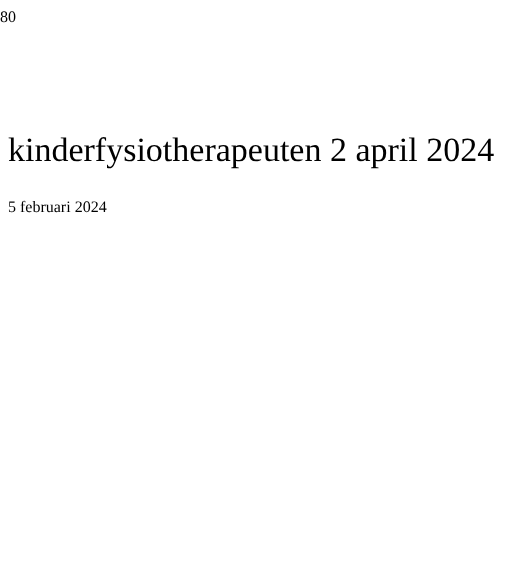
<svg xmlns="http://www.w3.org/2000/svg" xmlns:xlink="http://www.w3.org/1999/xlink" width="526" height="568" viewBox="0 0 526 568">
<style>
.cls-1{font:16px Liberation Serif;fill:#000000}
.cls-2{font:34px Liberation Serif;fill:#000000}
</style>
<rect width="100%" height="100%" fill="#ffffff"/>
<text class="cls-1" x="0" y="22">80</text>
<text class="cls-2" x="8" y="161">kinderfysiotherapeuten 2 april 2024</text>
<text class="cls-1" x="8" y="212">5 februari 2024</text>
</svg>
